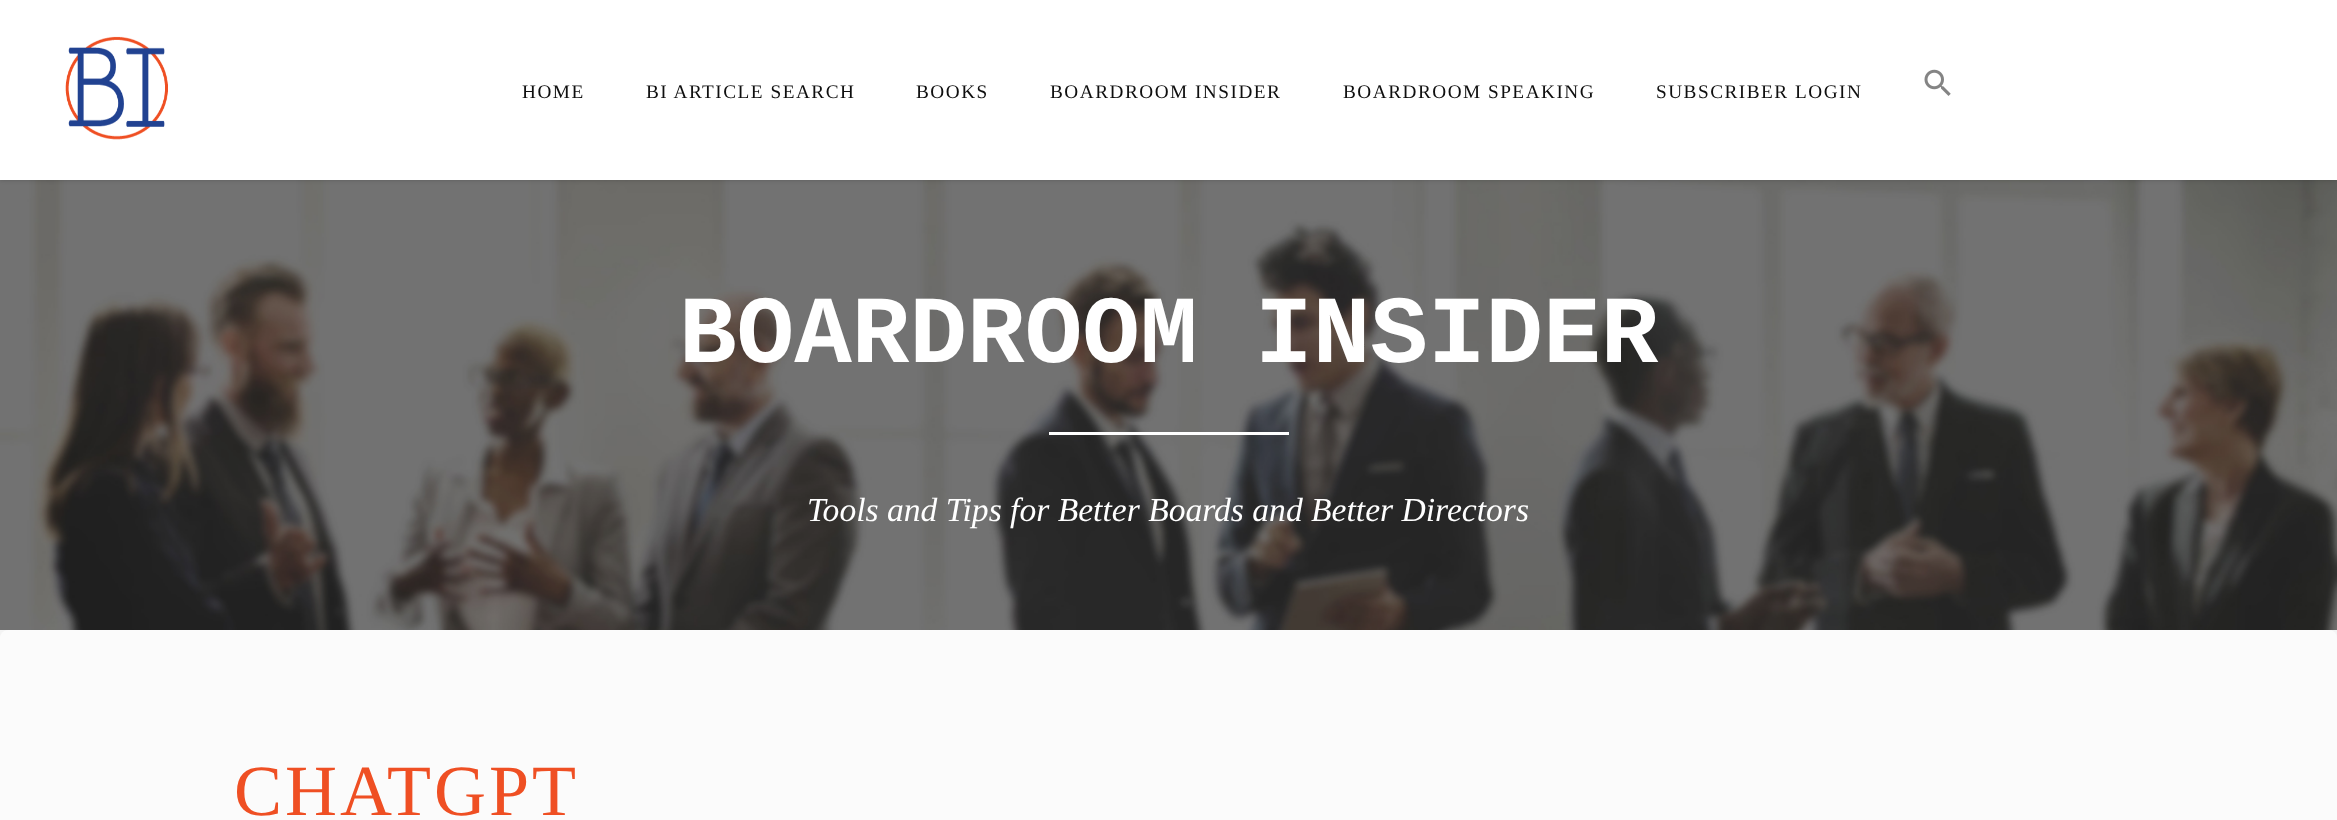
<svg xmlns="http://www.w3.org/2000/svg" xmlns:xlink="http://www.w3.org/1999/xlink" width="2337" height="820" viewBox="0 0 2337 820">
<style>
.cls-1{font:19.25px Liberation Serif;letter-spacing:1.5px;fill:#0f0f0f}
.cls-2{font:bold 96px Liberation Mono;fill:#ffffff}
.cls-3{font:italic 33.6px Liberation Serif;fill:#ffffff}
.cls-4{font:72px Liberation Serif;letter-spacing:3px;fill:#ef4f23}
</style>
<rect width="100%" height="100%" fill="#f3f3f3"/>
<image xlink:href="image2.png" x="0" y="180" width="2337" height="450"/>
<rect fill="#000000" fill-opacity="0.2" filter="blur(2px)" x="0" y="0" width="2337" height="180"/>
<rect fill="#ffffff" x="0" y="0" width="2337" height="180"/>
<image xlink:href="image0.png" x="65" y="36" width="103" height="104"/>
<image xlink:href="image1.png" x="1924" y="69" width="27" height="27"/>
<rect fill="#ffffff" x="1049" y="432" width="240" height="3"/>
<rect fill="#fbfbfb" x="0" y="630" width="2337" height="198" rx="8"/>
<text class="cls-1" x="522" y="98">HOME</text>
<text class="cls-1" x="646" y="98">BI ARTICLE SEARCH</text>
<text class="cls-1" x="916" y="98">BOOKS</text>
<text class="cls-1" x="1050" y="98">BOARDROOM INSIDER</text>
<text class="cls-1" x="1343" y="98">BOARDROOM SPEAKING</text>
<text class="cls-1" x="1656" y="98">SUBSCRIBER LOGIN</text>
<text class="cls-2" x="679" y="362">BOARDROOM INSIDER</text>
<text class="cls-3" x="807" y="521">Tools and Tips for Better Boards and Better Directors</text>
<text class="cls-4" x="234" y="815">CHATGPT</text>
</svg>
